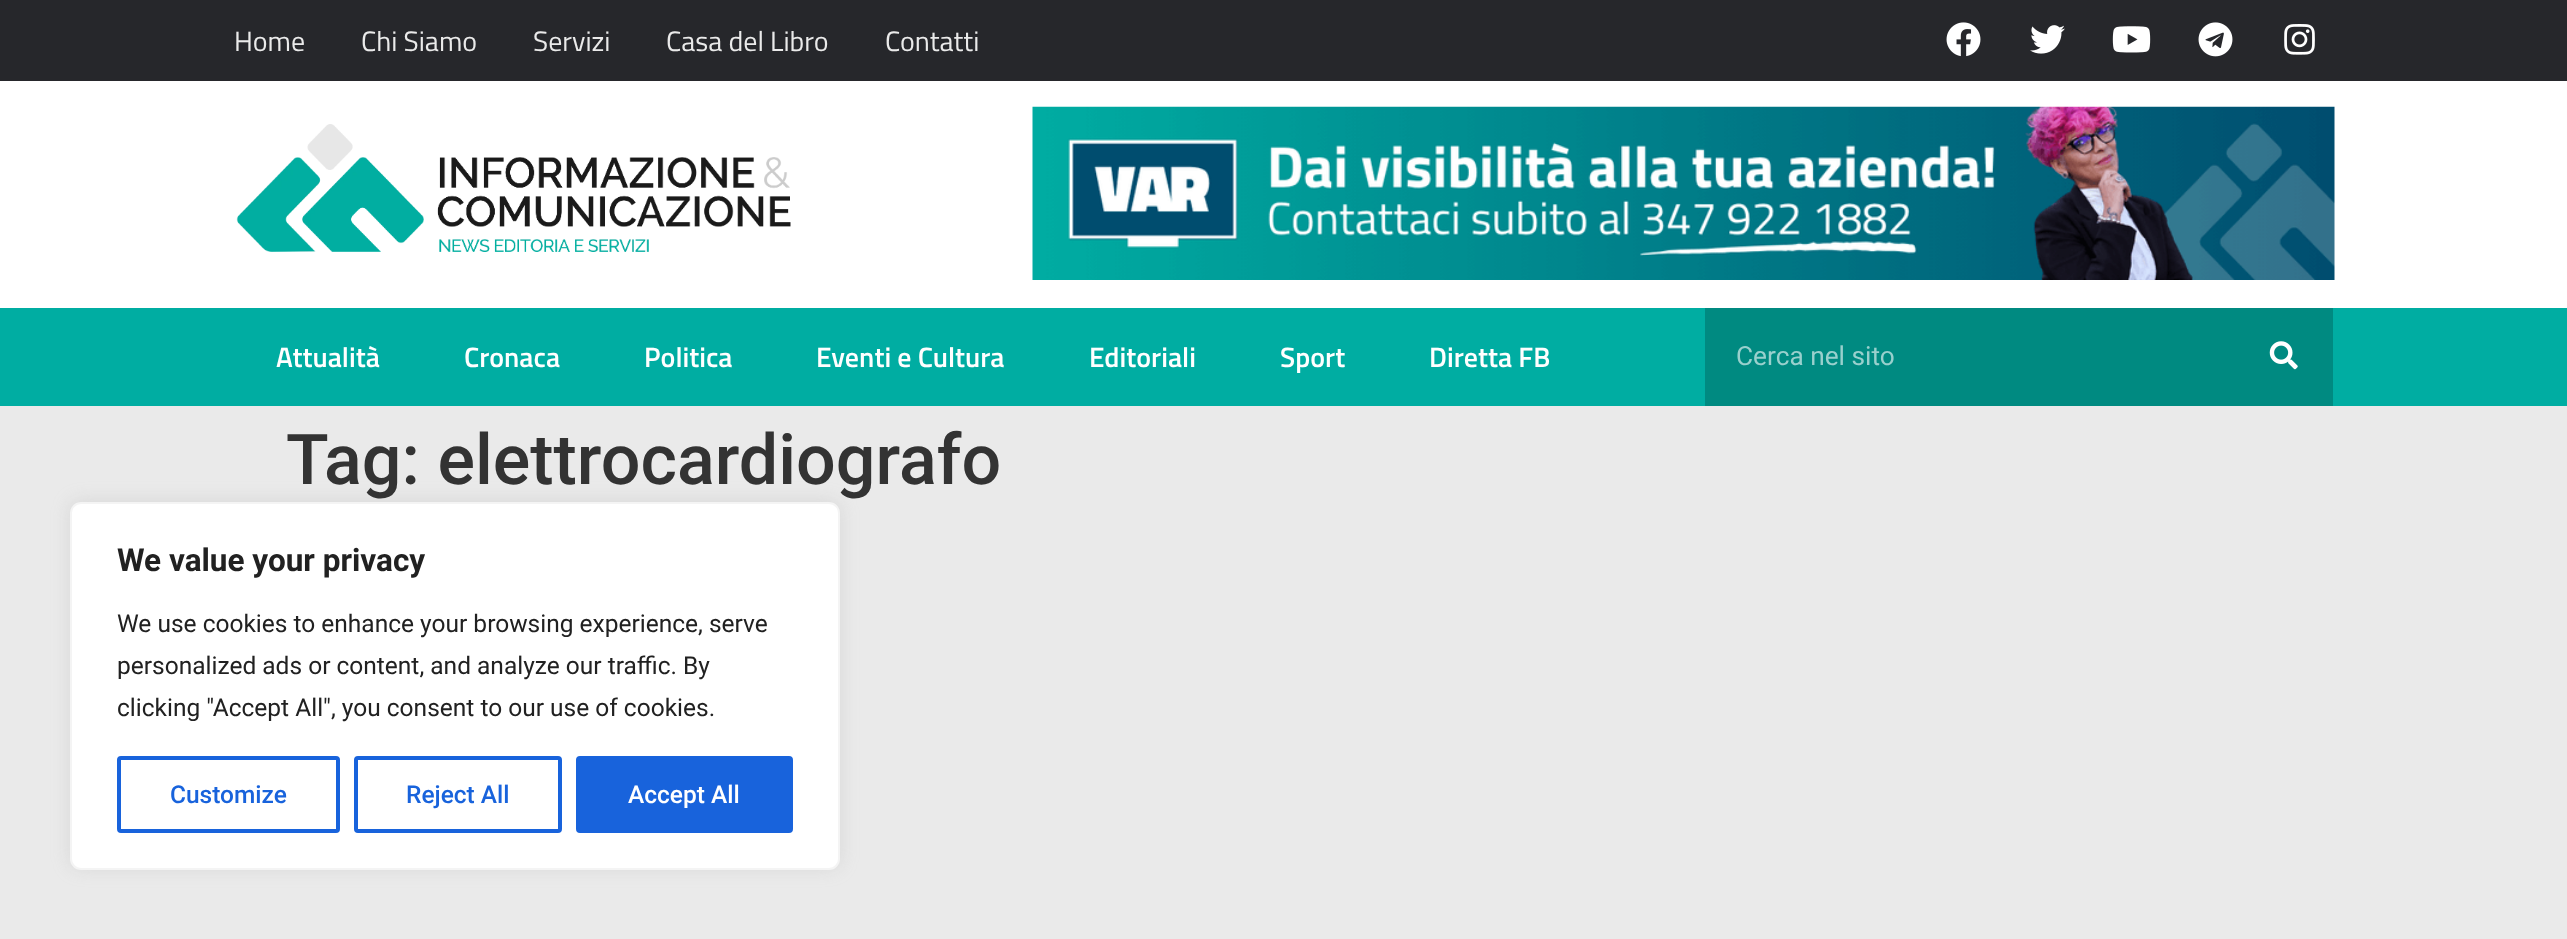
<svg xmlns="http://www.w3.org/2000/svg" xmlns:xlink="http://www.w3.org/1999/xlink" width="2567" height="939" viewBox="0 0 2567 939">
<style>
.cls-1{font:28px Titillium Web;fill:#eaeaea}
.cls-2{font:600 28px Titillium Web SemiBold;fill:#ffffff}
.cls-3{font:26.25px Roboto;fill:#99d0cd}
.cls-4{font:500 70px Roboto;fill:#333333}
.cls-5{font:bold 31.5px Roboto;fill:#212121}
.cls-6{font:24.5px Roboto;fill:#212121}
.cls-7{font:500 24.5px Roboto;fill:#1863dc}
.cls-8{font:500 24.5px Roboto;fill:#ffffff}
</style>
<rect width="100%" height="100%" fill="#eaeaea"/>
<rect fill="#26272b" x="0" y="0" width="2567" height="81"/>
<image xlink:href="image0.png" x="1946" y="22" width="35" height="35"/>
<image xlink:href="image1.png" x="2030" y="25" width="35" height="29"/>
<image xlink:href="image2.png" x="2112" y="26" width="39" height="27"/>
<image xlink:href="image3.png" x="2198" y="22" width="35" height="35"/>
<image xlink:href="image4.png" x="2284" y="24" width="31" height="31"/>
<rect fill="#ffffff" x="0" y="81" width="2567" height="227"/>
<image xlink:href="image5.png" x="236" y="124" width="555" height="128"/>
<image xlink:href="image6.png" x="1032" y="106" width="1303" height="174"/>
<rect fill="#00ada2" x="0" y="308" width="2567" height="98"/>
<rect fill="#008a81" x="1705" y="308" width="628" height="98"/>
<image xlink:href="image7.png" x="2269" y="341" width="29" height="29"/>
<rect fill="#acabab" fill-opacity="0.3" filter="blur(9px)" x="70" y="501" width="770" height="367" rx="11"/>
<rect fill="#ffffff" stroke="#f4f4f4" stroke-width="2" x="71" y="503" width="768" height="366" rx="10"/>
<rect fill="none" stroke="#1863dc" stroke-width="4" x="119" y="758" width="219" height="73" rx="2"/>
<rect fill="none" stroke="#1863dc" stroke-width="4" x="356" y="758" width="204" height="73" rx="2"/>
<rect fill="#1863dc" stroke="#1863dc" stroke-width="4" x="578" y="758" width="213" height="73" rx="2"/>
<text class="cls-1" x="234" y="51">Home</text>
<text class="cls-1" x="361" y="51">Chi Siamo</text>
<text class="cls-1" x="533" y="51">Servizi</text>
<text class="cls-1" x="666" y="51">Casa del Libro</text>
<text class="cls-1" x="885" y="51">Contatti</text>
<text class="cls-2" x="276" y="367">Attualità</text>
<text class="cls-2" x="464" y="367">Cronaca</text>
<text class="cls-2" x="644" y="367">Politica</text>
<text class="cls-2" x="816" y="367">Eventi e Cultura</text>
<text class="cls-2" x="1089" y="367">Editoriali</text>
<text class="cls-2" x="1280" y="367">Sport</text>
<text class="cls-2" x="1429" y="367">Diretta FB</text>
<text class="cls-3" x="1736" y="365">Cerca nel sito</text>
<text class="cls-4" x="286" y="484">Tag: elettrocardiografo</text>
<text class="cls-5" x="117" y="571">We value your privacy</text>
<text class="cls-6"><tspan x="117" y="632">We use cookies to enhance your browsing experience, serve</tspan><tspan x="117" y="674">personalized ads or content, and analyze our traffic. By</tspan><tspan x="117" y="716">clicking "Accept All", you consent to our use of cookies.</tspan></text>
<text class="cls-7" x="170" y="803">Customize</text>
<text class="cls-7" x="406" y="803">Reject All</text>
<text class="cls-8" x="628" y="803">Accept All</text>
</svg>
